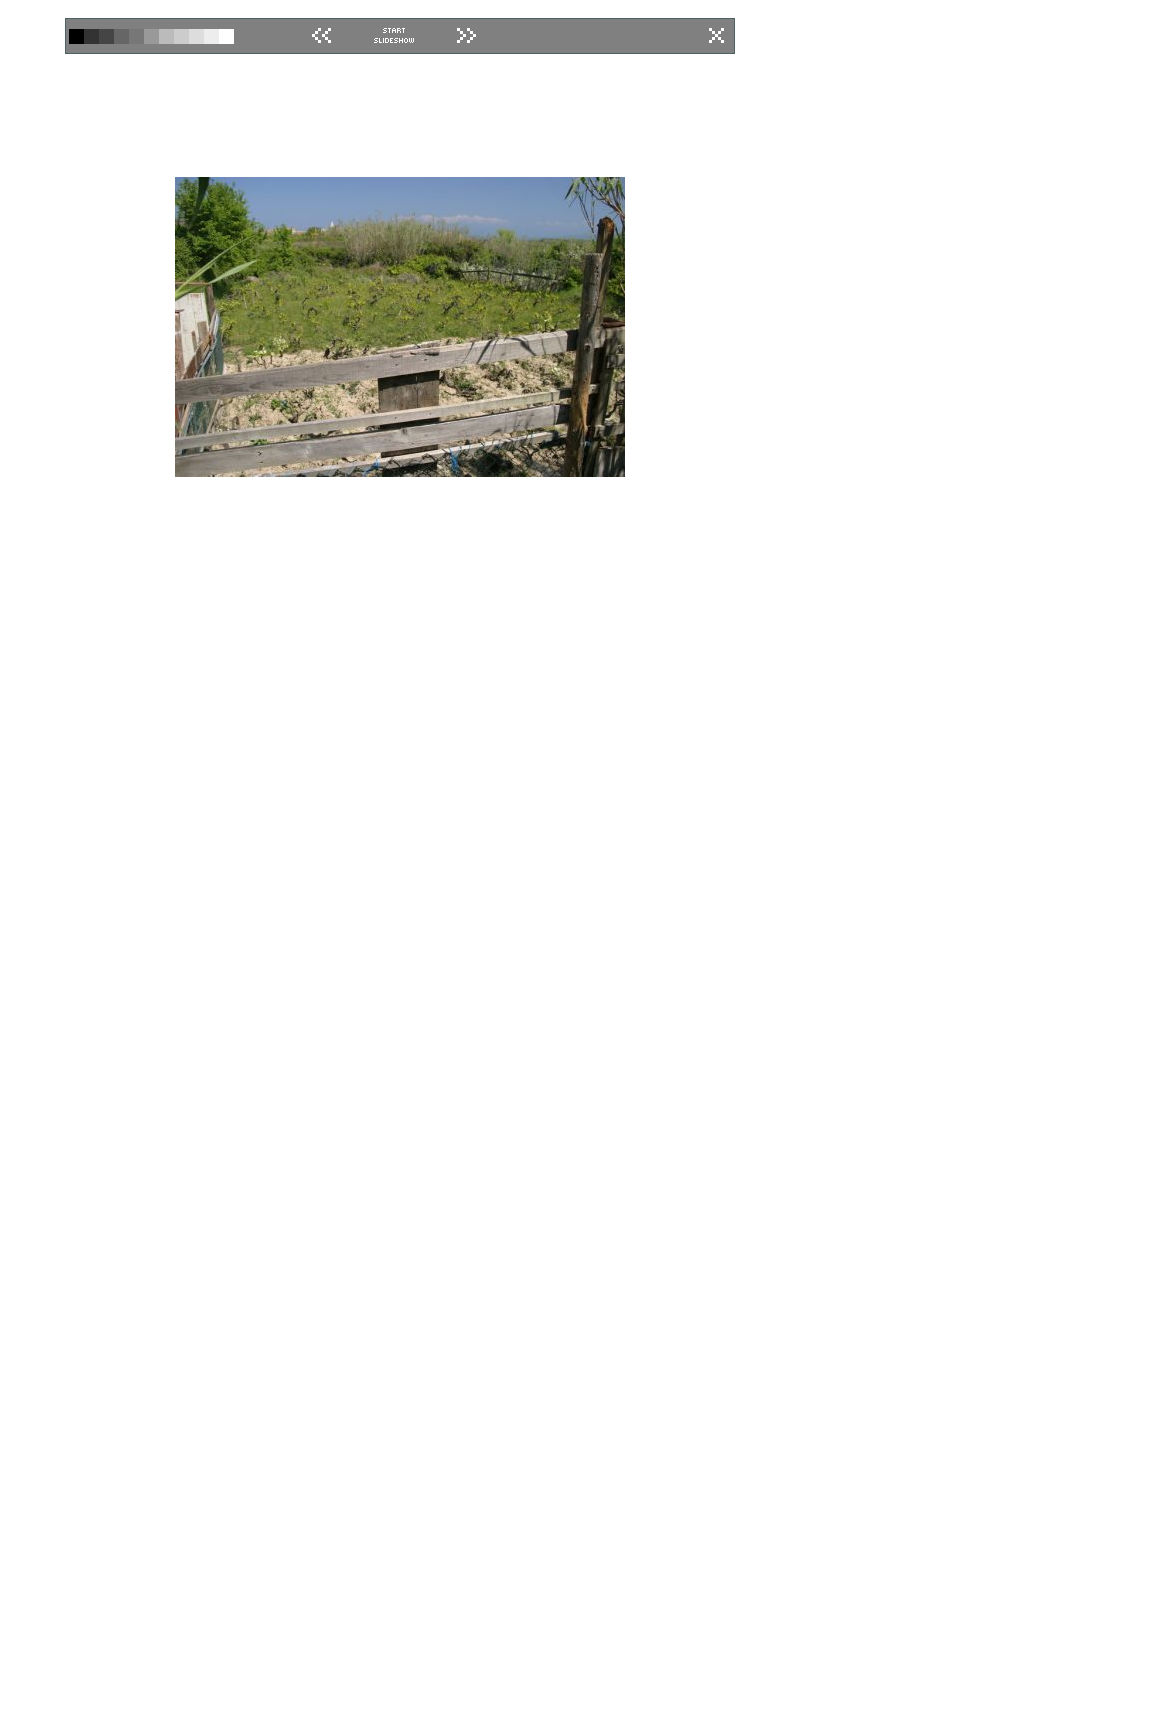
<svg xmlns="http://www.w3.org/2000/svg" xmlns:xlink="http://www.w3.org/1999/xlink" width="1169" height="1727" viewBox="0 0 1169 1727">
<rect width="100%" height="100%" fill="#ffffff"/>
<rect fill="#808080" stroke="#4c6164" x="65.5" y="18.5" width="669" height="35"/>
<rect fill="#000000" x="69" y="29" width="15" height="15"/>
<rect fill="#333333" x="84" y="29" width="15" height="15"/>
<rect fill="#454545" x="99" y="29" width="15" height="15"/>
<rect fill="#666666" x="114" y="29" width="15" height="15"/>
<rect fill="#777777" x="129" y="29" width="15" height="15"/>
<rect fill="#999999" x="144" y="29" width="15" height="15"/>
<rect fill="#bbbbbb" x="159" y="29" width="15" height="15"/>
<rect fill="#cccccc" x="174" y="29" width="15" height="15"/>
<rect fill="#dddddd" x="189" y="29" width="15" height="15"/>
<rect fill="#ededed" x="204" y="29" width="15" height="15"/>
<rect fill="#ffffff" x="219" y="29" width="15" height="15"/>
<image xlink:href="image0.png" x="312" y="28" width="19" height="15"/>
<image xlink:href="image1.png" x="374" y="28" width="40" height="15"/>
<image xlink:href="image2.png" x="457" y="28" width="19" height="15"/>
<image xlink:href="image3.png" x="709" y="28" width="15" height="15"/>
<image xlink:href="image4.png" x="175" y="177" width="450" height="300"/>
</svg>
